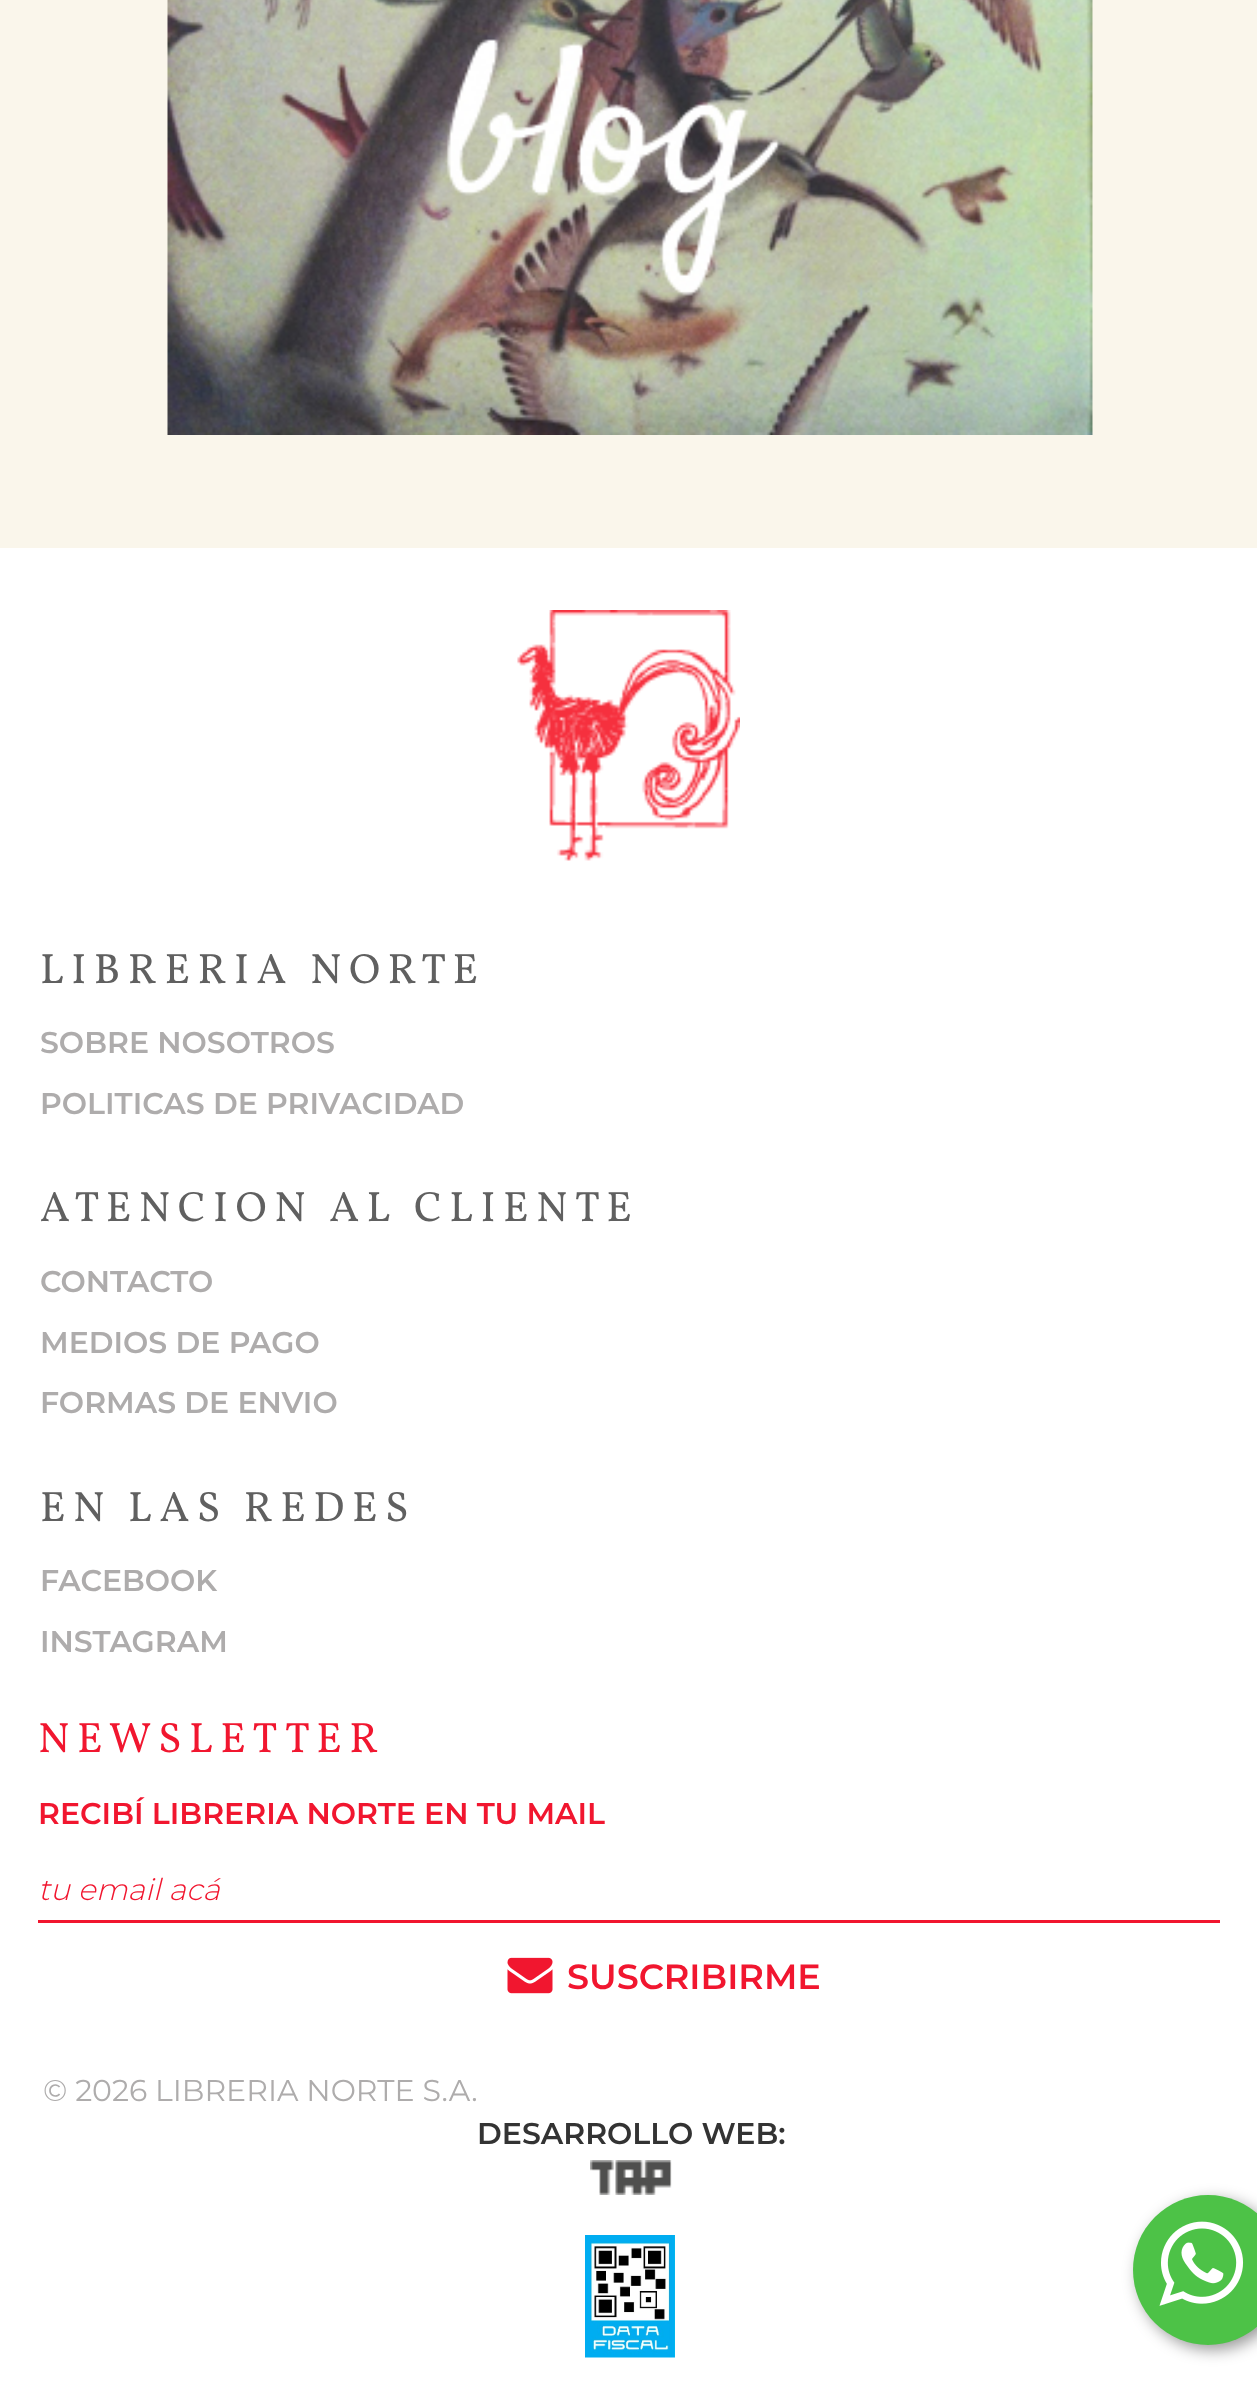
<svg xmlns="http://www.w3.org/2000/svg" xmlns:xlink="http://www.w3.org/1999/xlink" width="1257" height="2395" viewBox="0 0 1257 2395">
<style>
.cls-1{font:42.5px Vollkorn;letter-spacing:7.5px;fill:#606060}
.cls-2{font:600 30px Montserrat;fill:#aeacac}
.cls-3{font:42.5px Vollkorn;letter-spacing:7.5px;fill:#f1162f}
.cls-4{font:600 30px Montserrat;fill:#f1162f}
.cls-5{font:italic 300 30px Montserrat;fill:#f1162f}
.cls-6{font:600 35px Montserrat;fill:#f1162f}
.cls-7{font:30px Montserrat;fill:#aeacac}
.cls-8{font:600 30px Montserrat;fill:#333333}
</style>
<rect width="100%" height="100%" fill="#faf6eb"/>
<image xlink:href="image0.png" x="167" y="0" width="926" height="435"/>
<rect fill="#ffffff" x="0" y="548" width="1257" height="1847"/>
<image xlink:href="image1.png" x="517" y="610" width="223" height="251"/>
<rect fill="#f1162f" x="38" y="1920" width="1182" height="3"/>
<image xlink:href="image2.png" x="507" y="1957" width="46" height="37"/>
<image xlink:href="image3.png" x="590" y="2160" width="82" height="35"/>
<rect fill="#000000" fill-opacity="0.4" filter="blur(7.5px)" x="1138" y="2200" width="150" height="150" rx="75"/>
<circle fill="#4dc247" cx="1208" cy="2270" r="75"/>
<image xlink:href="image4.png" x="1159" y="2221" width="85" height="85"/>
<image xlink:href="image5.png" x="585" y="2235" width="90" height="123"/>
<text class="cls-1" x="40" y="983">LIBRERIA NORTE</text>
<text class="cls-2" x="40" y="1053">SOBRE NOSOTROS</text>
<text class="cls-2" x="40" y="1114">POLITICAS DE PRIVACIDAD</text>
<text class="cls-1" x="40" y="1221">ATENCION AL CLIENTE</text>
<text class="cls-2" x="40" y="1292">CONTACTO</text>
<text class="cls-2" x="40" y="1353">MEDIOS DE PAGO</text>
<text class="cls-2" x="40" y="1413">FORMAS DE ENVIO</text>
<text class="cls-1" x="40" y="1521">EN LAS REDES</text>
<text class="cls-2" x="40" y="1591">FACEBOOK</text>
<text class="cls-2" x="40" y="1652">INSTAGRAM</text>
<text class="cls-3" x="38" y="1752">NEWSLETTER</text>
<text class="cls-4" x="38" y="1824">RECIBÍ LIBRERIA NORTE EN TU MAIL</text>
<text class="cls-5" x="38" y="1900">tu email acá</text>
<text class="cls-6" x="567" y="1989">SUSCRIBIRME</text>
<text class="cls-7" x="43" y="2101">© 2026 LIBRERIA NORTE S.A.</text>
<text class="cls-8" x="477" y="2144">DESARROLLO WEB:</text>
</svg>
